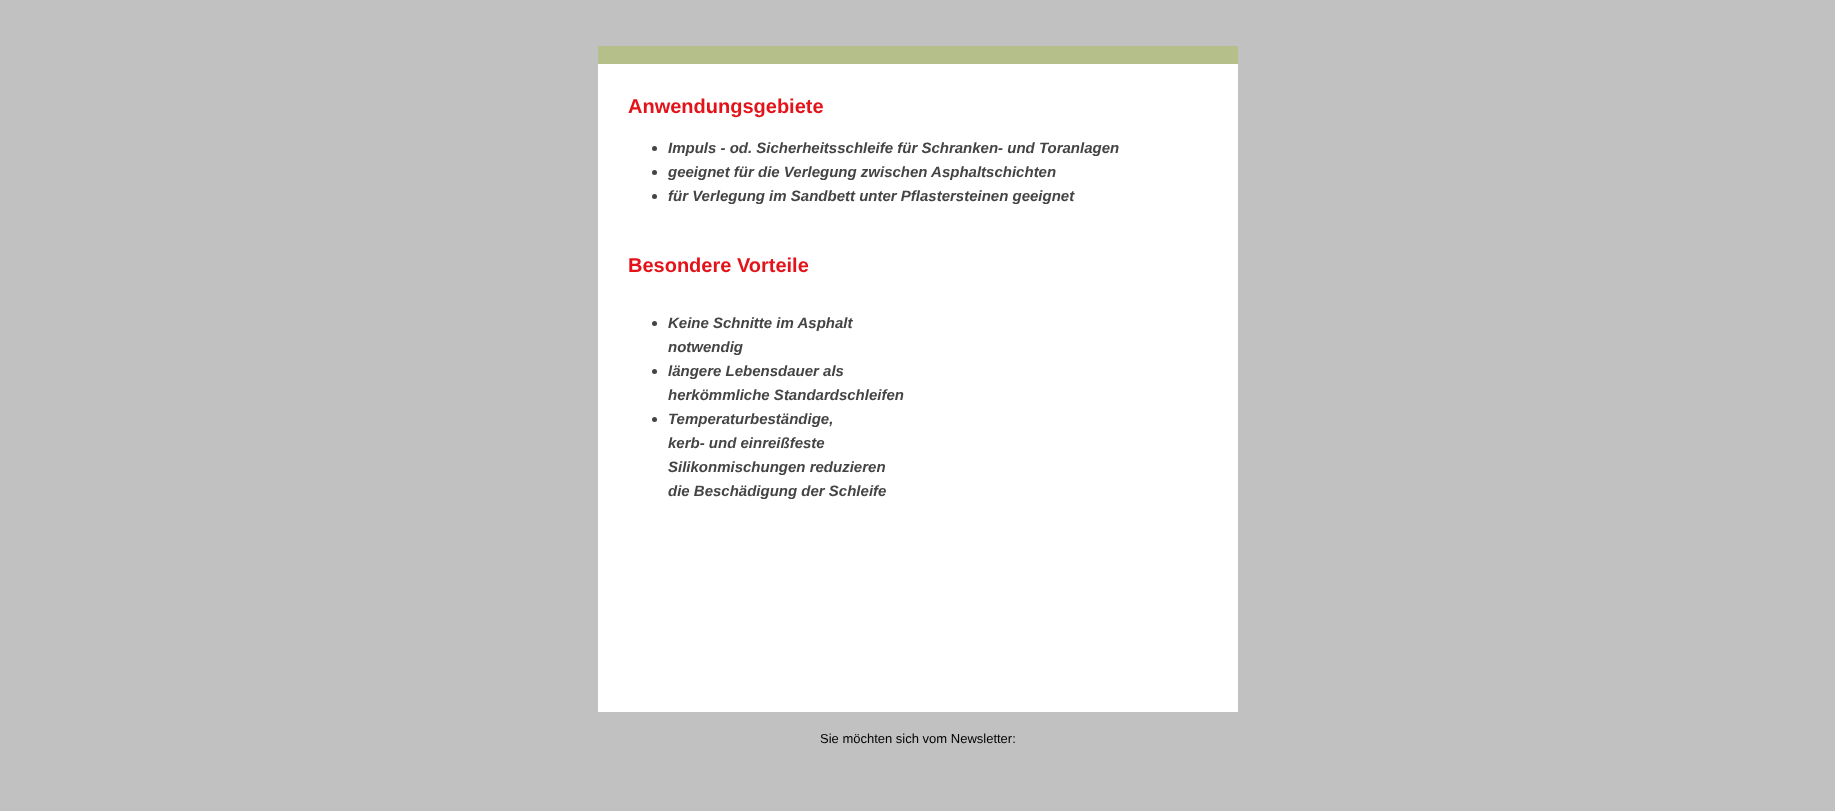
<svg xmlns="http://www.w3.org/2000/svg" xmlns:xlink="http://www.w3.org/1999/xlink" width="1835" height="811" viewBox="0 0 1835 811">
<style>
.cls-1{font:bold 20px Liberation Sans;fill:#e31319}
.cls-2{font:italic bold 15px Liberation Sans;fill:#444444}
.cls-3{font:13px Liberation Sans;fill:#000000}
</style>
<rect width="100%" height="100%" fill="#c1c1c1"/>
<rect fill="#b4bf8a" x="598" y="46" width="640" height="18"/>
<rect fill="#ffffff" x="598" y="64" width="640" height="648"/>
<circle fill="#444444" cx="654.5" cy="148.5" r="2.5"/>
<circle fill="#444444" cx="654.5" cy="172.5" r="2.5"/>
<circle fill="#444444" cx="654.5" cy="196.5" r="2.5"/>
<circle fill="#444444" cx="654.5" cy="323.5" r="2.5"/>
<circle fill="#444444" cx="654.5" cy="371.5" r="2.5"/>
<circle fill="#444444" cx="654.5" cy="419.5" r="2.5"/>
<text class="cls-1" x="628" y="113">Anwendungsgebiete</text>
<text class="cls-2"><tspan x="668" y="153">Impuls - od. Sicherheitsschleife für Schranken- und Toranlagen</tspan><tspan x="668" y="177">geeignet für die Verlegung zwischen Asphaltschichten</tspan><tspan x="668" y="201">für Verlegung im Sandbett unter Pflastersteinen geeignet</tspan></text>
<text class="cls-1" x="628" y="272">Besondere Vorteile</text>
<text class="cls-2"><tspan x="668" y="328">Keine Schnitte im Asphalt</tspan><tspan x="668" y="352">notwendig</tspan><tspan x="668" y="376">längere Lebensdauer als</tspan><tspan x="668" y="400">herkömmliche Standardschleifen</tspan><tspan x="668" y="424">Temperaturbeständige,</tspan><tspan x="668" y="448">kerb- und einreißfeste</tspan><tspan x="668" y="472">Silikonmischungen reduzieren</tspan><tspan x="668" y="496">die Beschädigung der Schleife</tspan></text>
<text class="cls-3" x="820" y="743">Sie möchten sich vom Newsletter:</text>
</svg>
